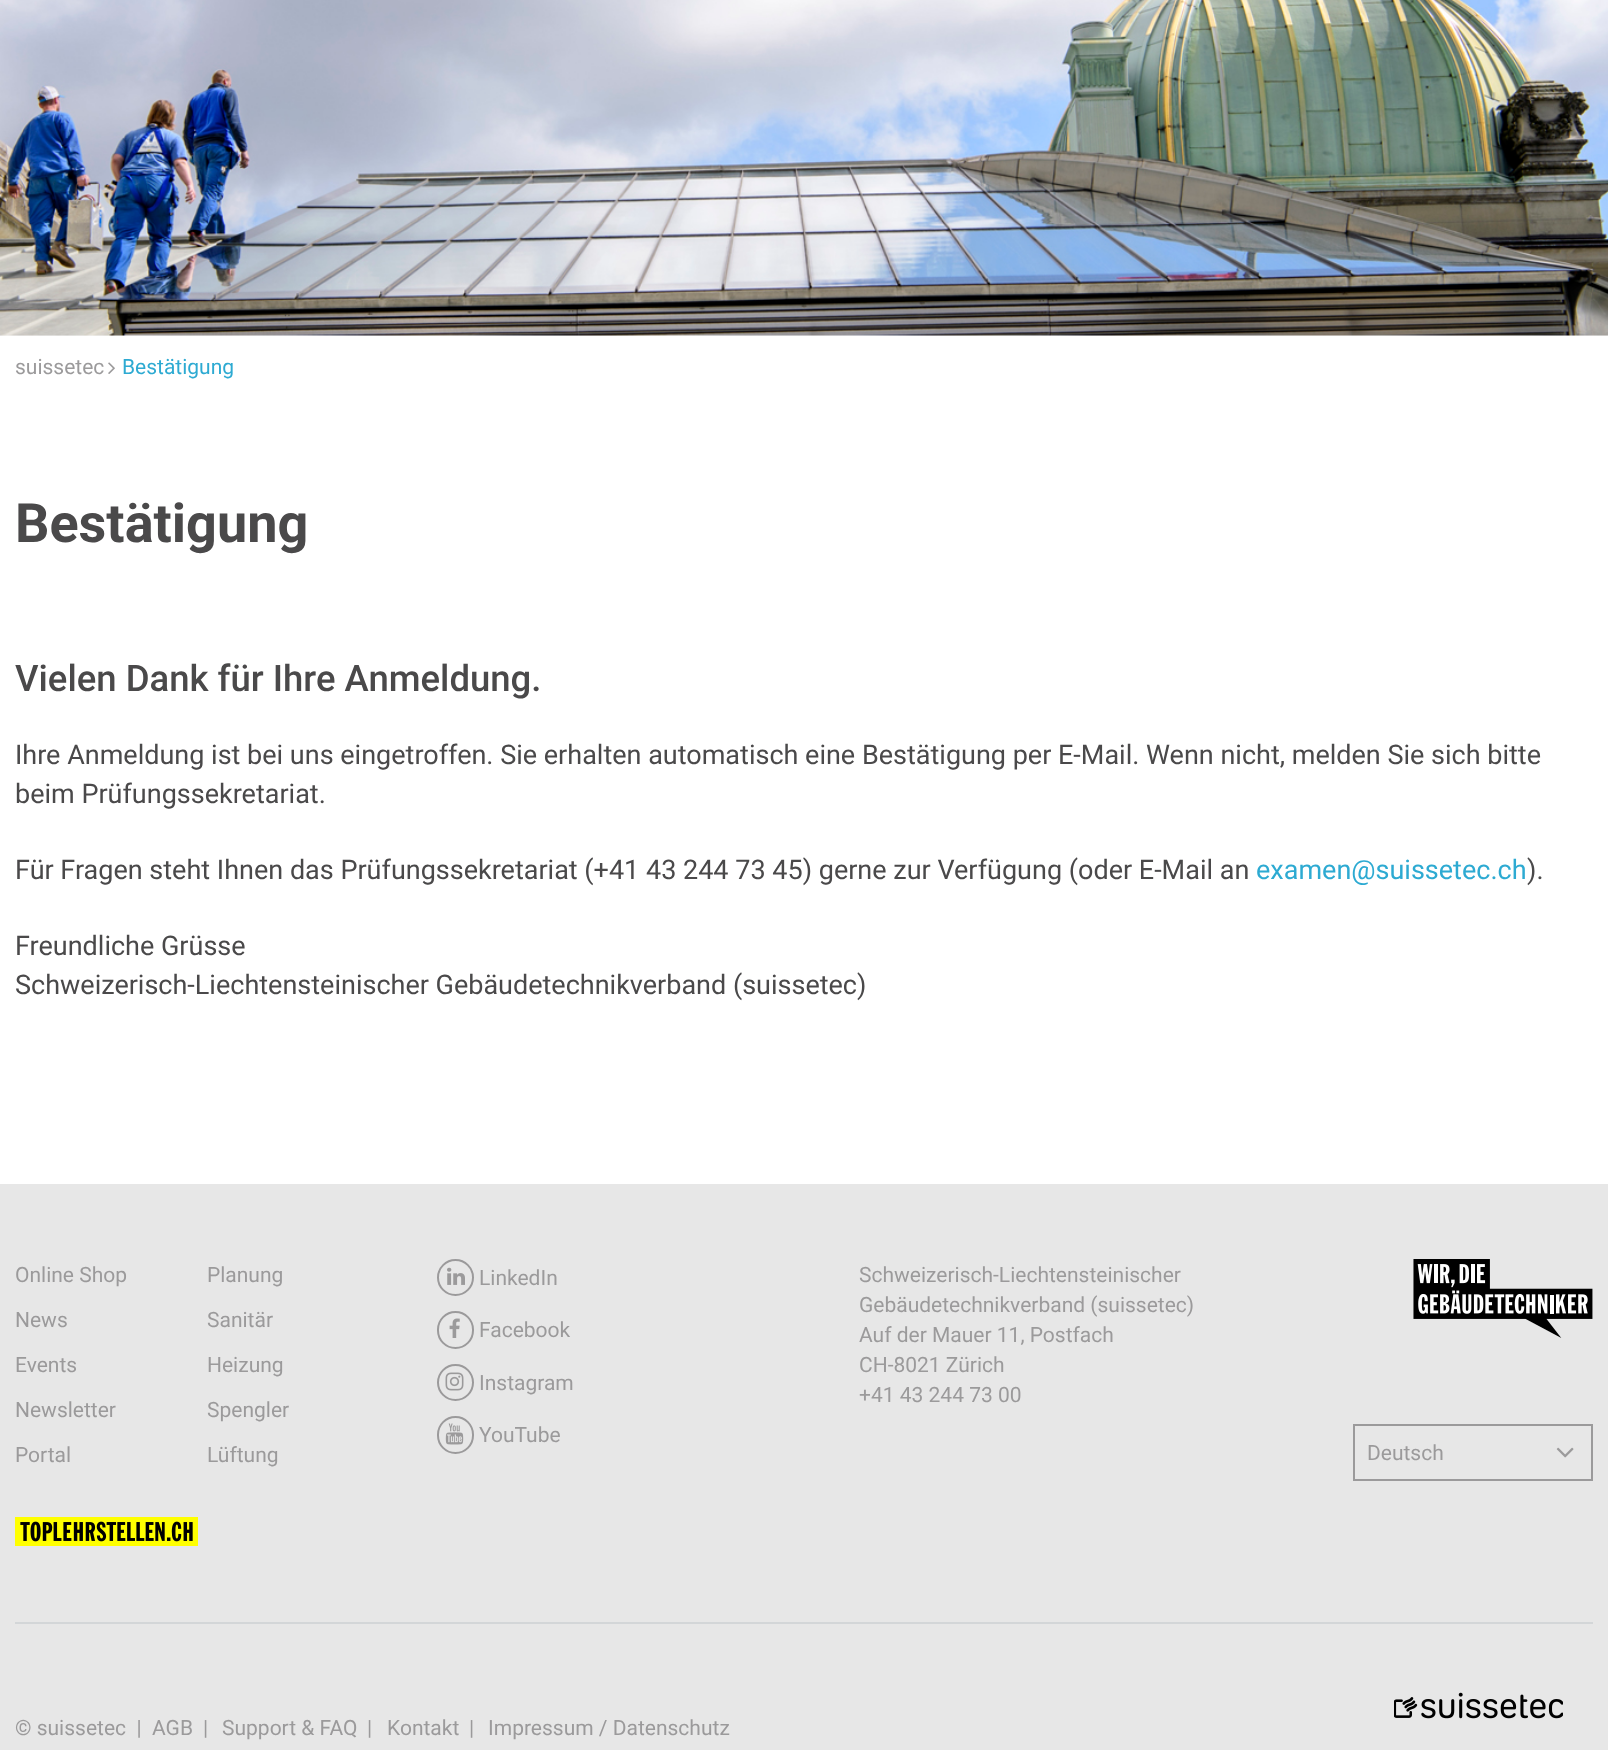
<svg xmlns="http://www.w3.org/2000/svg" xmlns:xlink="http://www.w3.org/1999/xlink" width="1608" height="1750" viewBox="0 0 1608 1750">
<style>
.cls-1{font:21px Roboto;fill:#9b9a9b}
.cls-2{font:21px Roboto;fill:#2daad2}
.cls-3{font:bold 54px Roboto;fill:#4a494a}
.cls-4{font:500 36.5px Roboto;fill:#4a494a}
.cls-5{font:27px Roboto;fill:#4a494a}
.cls-6{font:27px Roboto;fill:#2daad2}
</style>
<rect width="100%" height="100%" fill="#ffffff"/>
<rect fill="#f5f5f5" x="0" y="335" width="1608" height="1"/>
<image xlink:href="image0.png" x="0" y="0" width="1608" height="336"/>
<image xlink:href="image1.png" x="108" y="362" width="7" height="12"/>
<rect fill="#e7e7e7" x="0" y="1184" width="1608" height="566"/>
<circle fill="none" stroke="#9b9a9b" stroke-width="2" cx="455.5" cy="1277.5" r="17.5"/>
<image xlink:href="image2.png" x="447" y="1267" width="18" height="18"/>
<rect fill="none" stroke="#9b9a9b" stroke-width="2" x="438" y="1312" width="35" height="36" rx="17.5"/>
<image xlink:href="image3.png" x="449" y="1318" width="11" height="20"/>
<circle fill="none" stroke="#9b9a9b" stroke-width="2" cx="455.5" cy="1382.5" r="17.5"/>
<image xlink:href="image4.png" x="445" y="1372" width="19" height="19"/>
<rect fill="none" stroke="#9b9a9b" stroke-width="2" x="438" y="1417" width="35" height="36" rx="17.5"/>
<image xlink:href="image5.png" x="445" y="1423" width="19" height="22"/>
<image xlink:href="image6.png" x="1413" y="1259" width="180" height="79"/>
<rect fill="none" stroke="#9b9a9b" stroke-width="2" x="1354" y="1425" width="238" height="55"/>
<image xlink:href="image7.png" x="1556" y="1447" width="18" height="11"/>
<image xlink:href="image8.png" x="15" y="1517" width="183" height="29"/>
<rect fill="#d3d6d8" x="15" y="1622" width="1578" height="2"/>
<image xlink:href="image9.png" x="1394" y="1692" width="169" height="27"/>
<text class="cls-1" x="15" y="374">suissetec</text>
<text class="cls-2" x="122" y="374">Bestätigung</text>
<text class="cls-3" x="15" y="542">Bestätigung</text>
<text class="cls-4" x="15" y="691">Vielen Dank für Ihre Anmeldung.</text>
<text class="cls-5"><tspan x="15" y="764">Ihre Anmeldung ist bei uns eingetroffen. Sie erhalten automatisch eine Bestätigung per E-Mail. Wenn nicht, melden Sie sich bitte</tspan><tspan x="15" y="803">beim Prüfungssekretariat.</tspan></text>
<text class="cls-5" x="15" y="879">Für Fragen steht Ihnen das Prüfungssekretariat (+41 43 244 73 45) gerne zur Verfügung (oder E-Mail an</text>
<text class="cls-6" x="1256" y="879">examen@suissetec.ch</text>
<text class="cls-5" x="1527" y="879">).</text>
<text class="cls-5"><tspan x="15" y="955">Freundliche Grüsse</tspan><tspan x="15" y="994">Schweizerisch-Liechtensteinischer Gebäudetechnikverband (suissetec)</tspan></text>
<text class="cls-1" x="15" y="1282">Online Shop</text>
<text class="cls-1" x="207" y="1282">Planung</text>
<text class="cls-1" x="15" y="1327">News</text>
<text class="cls-1" x="207" y="1327">Sanitär</text>
<text class="cls-1" x="15" y="1372">Events</text>
<text class="cls-1" x="207" y="1372">Heizung</text>
<text class="cls-1" x="15" y="1417">Newsletter</text>
<text class="cls-1" x="207" y="1417">Spengler</text>
<text class="cls-1" x="15" y="1462">Portal</text>
<text class="cls-1" x="207" y="1462">Lüftung</text>
<text class="cls-1" x="479" y="1285">LinkedIn</text>
<text class="cls-1" x="479" y="1337">Facebook</text>
<text class="cls-1" x="479" y="1390">Instagram</text>
<text class="cls-1" x="479" y="1442">YouTube</text>
<text class="cls-1"><tspan x="859" y="1282">Schweizerisch-Liechtensteinischer</tspan><tspan x="859" y="1312">Gebäudetechnikverband (suissetec)</tspan><tspan x="859" y="1342">Auf der Mauer 11, Postfach</tspan><tspan x="859" y="1372">CH-8021 Zürich</tspan><tspan x="859" y="1402">+41 43 244 73 00</tspan></text>
<text class="cls-1" x="1367" y="1460">Deutsch</text>
<text class="cls-1" xml:space="preserve" x="15" y="1735">© suissetec  |</text>
<text class="cls-1" x="152" y="1735">AGB</text>
<text class="cls-1" x="203" y="1735">|</text>
<text class="cls-1" x="222" y="1735">Support &amp; FAQ</text>
<text class="cls-1" x="367" y="1735">|</text>
<text class="cls-1" x="387" y="1735">Kontakt</text>
<text class="cls-1" x="469" y="1735">|</text>
<text class="cls-1" x="488" y="1735">Impressum / Datenschutz</text>
</svg>
